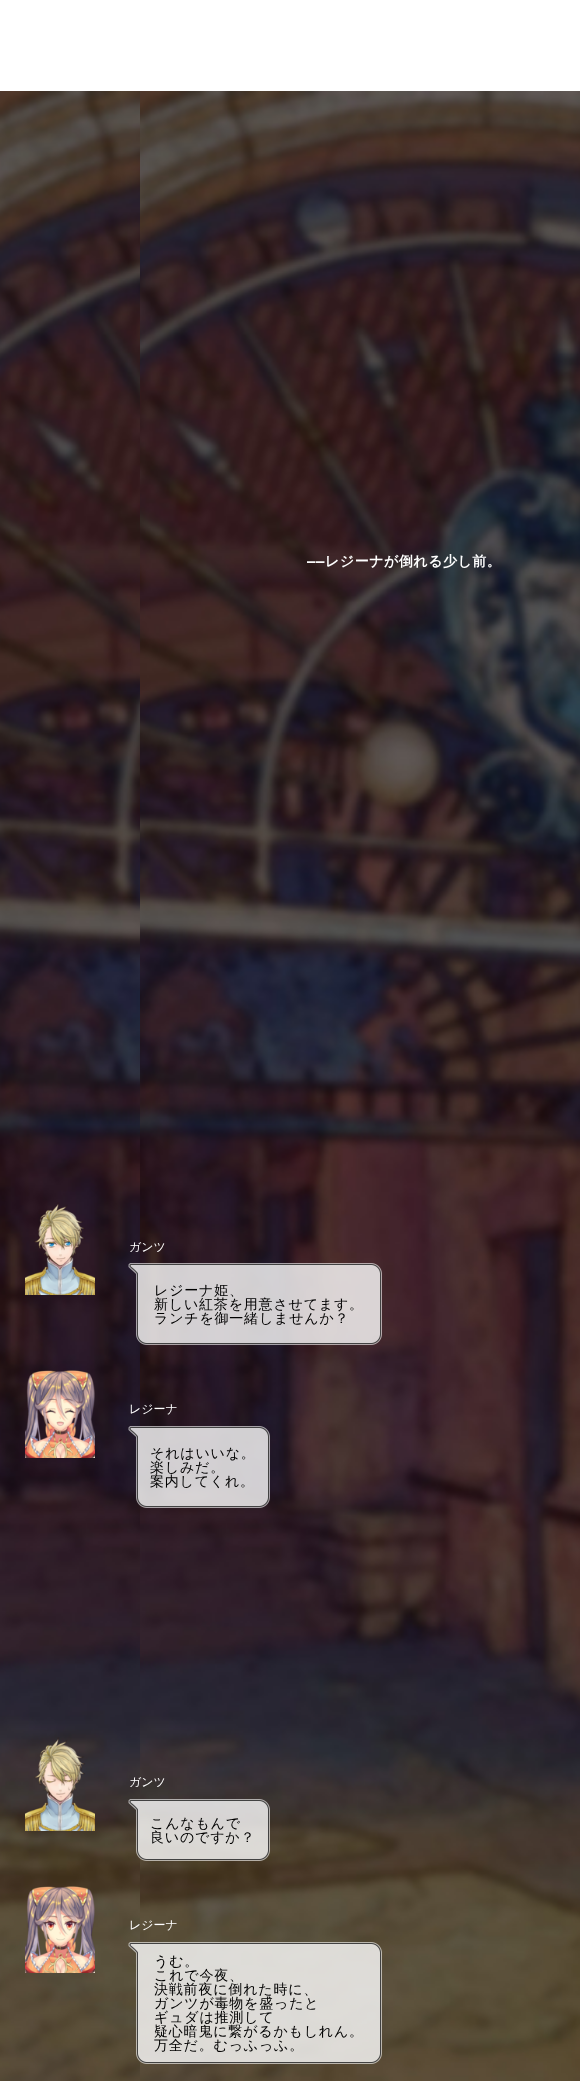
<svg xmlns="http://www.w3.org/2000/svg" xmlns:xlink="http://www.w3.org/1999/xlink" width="580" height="2081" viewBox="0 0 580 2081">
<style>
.cls-1{font:bold 14px DejaVu Sans Mono;letter-spacing:0.5px;fill:#ffffff}
.cls-2{font:bold 14px WenQuanYi Zen Hei;letter-spacing:0.5px;fill:#ffffff}
.cls-3{font:500 12px WenQuanYi Zen Hei;fill:#ffffff}
.cls-4{font:500 14px WenQuanYi Zen Hei;letter-spacing:0.8px;fill:#000000}
</style>
<rect width="100%" height="100%" fill="#ffffff"/>
<image xlink:href="image0.png" x="0" y="91" width="140" height="1990"/>
<image xlink:href="image1.png" x="140" y="91" width="440" height="1990"/>
<image xlink:href="image2.png" x="25" y="1202" width="70" height="93"/>
<image xlink:href="image3.png" x="128" y="1263" width="19" height="11"/>
<image xlink:href="image4.png" x="147" y="1263" width="224" height="11"/>
<image xlink:href="image5.png" x="371" y="1263" width="11" height="11"/>
<image xlink:href="image6.png" x="136" y="1274" width="11" height="60"/>
<rect fill="#ffffff" fill-opacity="0.8" x="147" y="1274" width="224" height="60"/>
<image xlink:href="image7.png" x="371" y="1274" width="11" height="60"/>
<image xlink:href="image8.png" x="136" y="1334" width="11" height="11"/>
<image xlink:href="image9.png" x="147" y="1334" width="224" height="11"/>
<image xlink:href="image10.png" x="371" y="1334" width="11" height="11"/>
<image xlink:href="image11.png" x="25" y="1370" width="70" height="88"/>
<image xlink:href="image12.png" x="128" y="1426" width="19" height="11"/>
<image xlink:href="image13.png" x="147" y="1426" width="112" height="11"/>
<image xlink:href="image14.png" x="259" y="1426" width="11" height="11"/>
<image xlink:href="image15.png" x="136" y="1437" width="11" height="60"/>
<rect fill="#ffffff" fill-opacity="0.8" x="147" y="1437" width="112" height="60"/>
<image xlink:href="image16.png" x="259" y="1437" width="11" height="60"/>
<image xlink:href="image17.png" x="136" y="1497" width="11" height="11"/>
<image xlink:href="image18.png" x="147" y="1497" width="112" height="11"/>
<image xlink:href="image19.png" x="259" y="1497" width="11" height="11"/>
<image xlink:href="image20.png" x="25" y="1737" width="70" height="94"/>
<image xlink:href="image21.png" x="128" y="1799" width="19" height="11"/>
<image xlink:href="image22.png" x="147" y="1799" width="112" height="11"/>
<image xlink:href="image23.png" x="259" y="1799" width="11" height="11"/>
<image xlink:href="image24.png" x="136" y="1810" width="11" height="40"/>
<rect fill="#ffffff" fill-opacity="0.8" x="147" y="1810" width="112" height="40"/>
<image xlink:href="image25.png" x="259" y="1810" width="11" height="40"/>
<image xlink:href="image26.png" x="136" y="1850" width="11" height="11"/>
<image xlink:href="image27.png" x="147" y="1850" width="112" height="11"/>
<image xlink:href="image28.png" x="259" y="1850" width="11" height="11"/>
<image xlink:href="image29.png" x="25" y="1886" width="70" height="87"/>
<image xlink:href="image30.png" x="128" y="1942" width="19" height="11"/>
<image xlink:href="image31.png" x="147" y="1942" width="224" height="11"/>
<image xlink:href="image32.png" x="371" y="1942" width="11" height="11"/>
<image xlink:href="image33.png" x="136" y="1953" width="11" height="100"/>
<rect fill="#ffffff" fill-opacity="0.8" x="147" y="1953" width="224" height="100"/>
<image xlink:href="image34.png" x="371" y="1953" width="11" height="100"/>
<image xlink:href="image35.png" x="136" y="2053" width="11" height="11"/>
<image xlink:href="image36.png" x="147" y="2053" width="224" height="11"/>
<image xlink:href="image37.png" x="371" y="2053" width="11" height="11"/>
<text class="cls-1" x="307" y="566">――</text>
<text class="cls-2" x="325" y="566">レジーナが倒れる少し前。</text>
<text class="cls-3" x="129" y="1251">ガンツ</text>
<text class="cls-4"><tspan x="154" y="1295">レジーナ姫、</tspan><tspan x="154" y="1309">新しい紅茶を用意させてます。</tspan><tspan x="154" y="1323">ランチを御一緒しませんか？</tspan></text>
<text class="cls-3" x="129" y="1413">レジーナ</text>
<text class="cls-4"><tspan x="150" y="1458">それはいいな。</tspan><tspan x="150" y="1472">楽しみだ。</tspan><tspan x="150" y="1486">案内してくれ。</tspan></text>
<text class="cls-3" x="129" y="1786">ガンツ</text>
<text class="cls-4"><tspan x="150" y="1828">こんなもんで</tspan><tspan x="150" y="1842">良いのですか？</tspan></text>
<text class="cls-3" x="129" y="1929">レジーナ</text>
<text class="cls-4"><tspan x="154" y="1966">うむ。</tspan><tspan x="154" y="1980">これで今夜、</tspan><tspan x="154" y="1994">決戦前夜に倒れた時に、</tspan><tspan x="154" y="2008">ガンツが毒物を盛ったと</tspan><tspan x="154" y="2022">ギュダは推測して</tspan><tspan x="154" y="2036">疑心暗鬼に繋がるかもしれん。</tspan><tspan x="154" y="2050">万全だ。むっふっふ。</tspan></text>
</svg>
